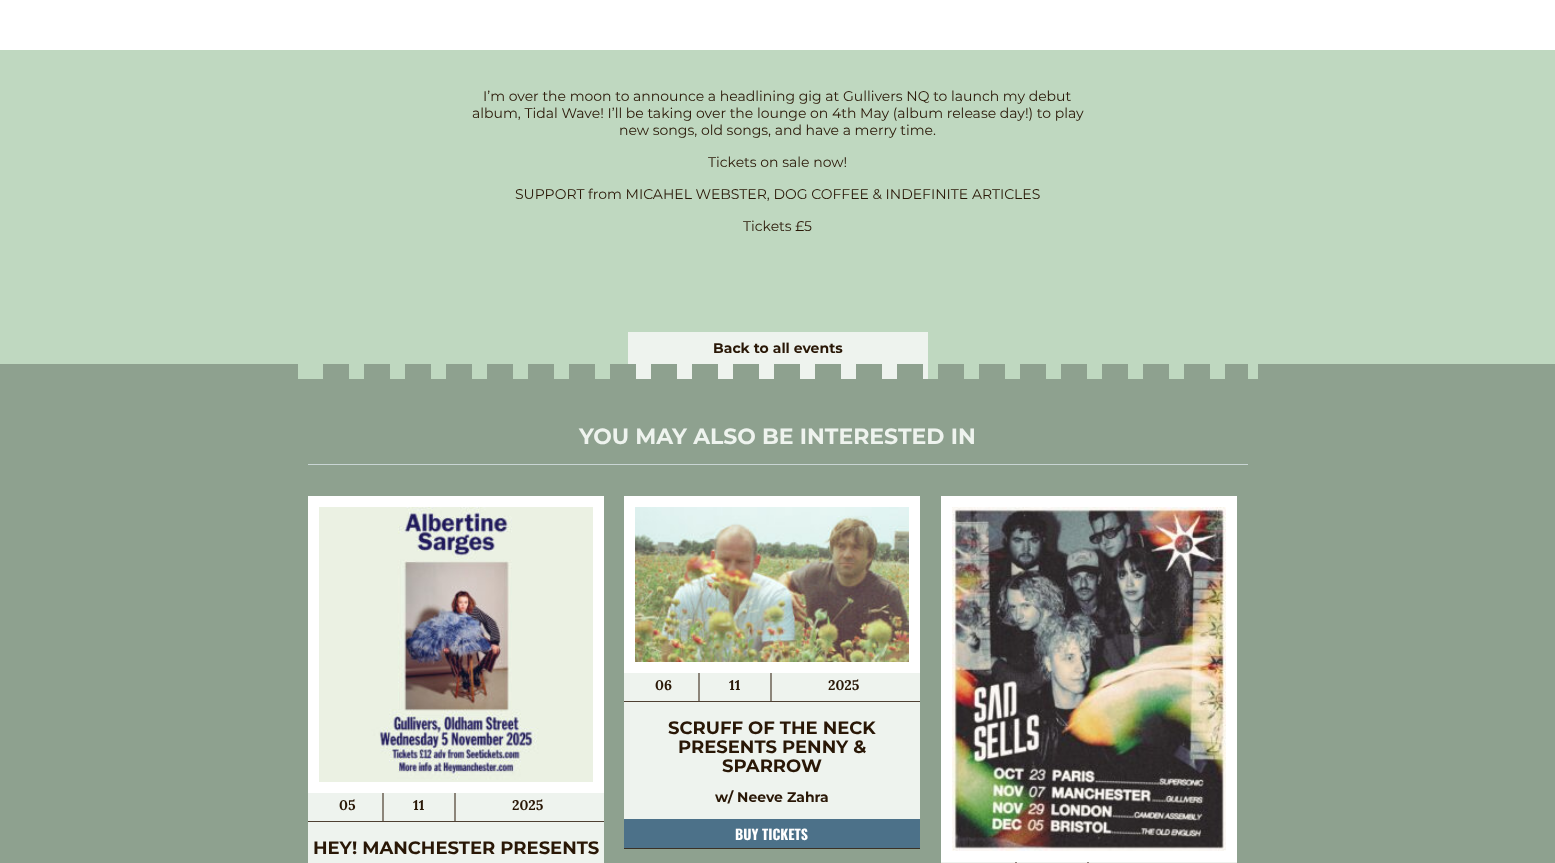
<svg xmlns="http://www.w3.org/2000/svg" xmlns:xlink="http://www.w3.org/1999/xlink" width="1555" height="863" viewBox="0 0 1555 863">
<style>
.cls-1{font:14px Montserrat;fill:#291706}
.cls-2{font:bold 14px Montserrat;fill:#291706}
.cls-3{font:bold 22px Montserrat;fill:#eef3ee}
.cls-4{font:bold 14px Lora;fill:#291706}
.cls-5{font:bold 18px Montserrat;fill:#291706}
.cls-6{font:bold 14px Oswald;fill:#ffffff}
</style>
<rect width="100%" height="100%" fill="#bfd8c0"/>
<rect fill="#ffffff" x="0" y="0" width="1555" height="50"/>
<rect fill="#eef3ee" x="628" y="332" width="300" height="47"/>
<rect fill="#8ea18f" x="298" y="379" width="960" height="484"/>
<rect fill="#8ea18f" x="0" y="364" width="298" height="499"/>
<rect fill="#8ea18f" x="1258" y="364" width="297" height="499"/>
<image xlink:href="image0.png" x="323" y="364" width="925" height="15"/>
<rect fill="#c9d5d4" x="308" y="464" width="940" height="1"/>
<rect fill="#eef3ee" x="308" y="793" width="296" height="70"/>
<rect fill="#ffffff" x="308" y="496" width="296" height="297"/>
<image xlink:href="image1.png" x="319" y="507" width="274" height="275"/>
<rect fill="#4e4032" x="308" y="821" width="296" height="1"/>
<rect fill="#8c857a" x="382" y="793" width="2" height="28"/>
<rect fill="#8c857a" x="454" y="793" width="2" height="28"/>
<rect fill="#eef3ee" x="624" y="673" width="296" height="146"/>
<rect fill="#ffffff" x="624" y="496" width="296" height="177"/>
<image xlink:href="image2.png" x="635" y="507" width="274" height="155"/>
<rect fill="#4e4032" x="624" y="701" width="296" height="1"/>
<rect fill="#8c857a" x="698" y="673" width="2" height="28"/>
<rect fill="#8c857a" x="770" y="673" width="2" height="28"/>
<rect fill="#4c7189" x="624" y="819" width="296" height="29"/>
<rect fill="#393025" x="624" y="848" width="296" height="1"/>
<rect fill="#eef3ee" x="941" y="862" width="296" height="1"/>
<rect fill="#ffffff" x="941" y="496" width="296" height="366"/>
<image xlink:href="image3.png" x="952" y="507" width="274" height="344"/>
<rect fill="#8c857a" x="1015" y="862" width="2" height="1"/>
<rect fill="#8c857a" x="1087" y="862" width="2" height="1"/>
<text class="cls-1" x="483" y="101">I’m over the moon to announce a headlining gig at Gullivers NQ to launch my debut</text>
<text class="cls-1" x="472" y="118">album, Tidal Wave! I’ll be taking over the lounge on 4th May (album release day!) to play</text>
<text class="cls-1" x="619" y="135">new songs, old songs, and have a merry time.</text>
<text class="cls-1" x="708" y="167">Tickets on sale now!</text>
<text class="cls-1" x="515" y="199">SUPPORT from MICAHEL WEBSTER, DOG COFFEE &amp; INDEFINITE ARTICLES</text>
<text class="cls-1" x="743" y="231">Tickets £5</text>
<text class="cls-2" x="713" y="353">Back to all events</text>
<text class="cls-3" x="579" y="444">YOU MAY ALSO BE INTERESTED IN</text>
<text class="cls-4" x="339" y="810">05</text>
<text class="cls-4" x="413" y="810">11</text>
<text class="cls-4" x="512" y="810">2025</text>
<text class="cls-5" x="313" y="854">HEY! MANCHESTER PRESENTS</text>
<text class="cls-4" x="655" y="690">06</text>
<text class="cls-4" x="729" y="690">11</text>
<text class="cls-4" x="828" y="690">2025</text>
<text class="cls-5" x="668" y="734">SCRUFF OF THE NECK</text>
<text class="cls-5" x="678" y="753">PRESENTS PENNY &amp;</text>
<text class="cls-5" x="722" y="772">SPARROW</text>
<text class="cls-2" x="715" y="802">w/ Neeve Zahra</text>
<text class="cls-6" x="735" y="840">BUY TICKETS</text>
</svg>
